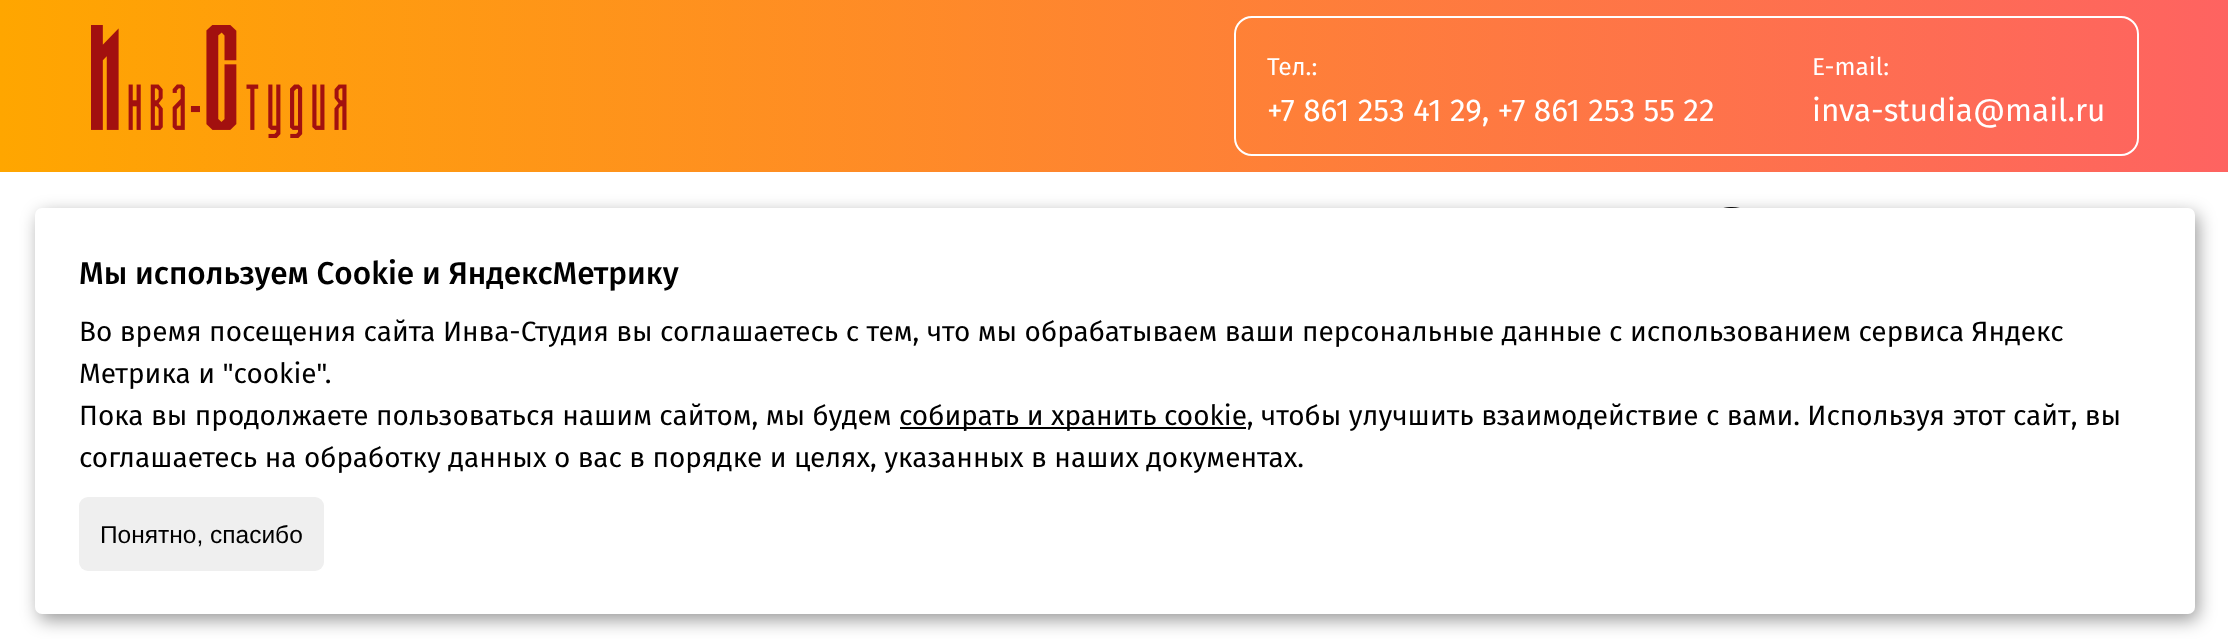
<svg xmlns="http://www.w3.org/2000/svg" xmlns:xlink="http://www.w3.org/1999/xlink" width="2228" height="639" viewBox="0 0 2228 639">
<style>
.cls-1{font:24.5px Fira Sans;fill:#ffffff}
.cls-2{font:31.5px Fira Sans;fill:#ffffff}
.cls-3{font:500 31.5px Fira Sans;fill:#000000}
.cls-4{font:28px Fira Sans;fill:#000000}
.cls-5{font:24.5px Liberation Sans;fill:#000000}
</style>
<defs>
<linearGradient id="g1" gradientUnits="userSpaceOnUse" x1="0" y1="86" x2="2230" y2="86"><stop offset="0" stop-color="#ffa600"/><stop offset="1" stop-color="#fe6361"/></linearGradient>
</defs>
<rect width="100%" height="100%" fill="#ffffff"/>
<rect fill="url(#g1)" x="0" y="0" width="2228" height="172"/>
<image xlink:href="image0.png" x="91" y="25" width="256" height="113"/>
<rect fill="none" stroke="#ffffff" stroke-width="2" x="1235" y="17" width="903" height="138" rx="17"/>
<image xlink:href="image1.png" x="1723" y="207" width="17" height="1"/>
<rect fill="#000000" fill-opacity="0.4" filter="blur(9px)" x="39" y="214" width="2159" height="406" rx="7"/>
<rect fill="#ffffff" x="35" y="208" width="2160" height="406" rx="7"/>
<rect fill="#000000" x="900" y="427" width="346" height="2"/>
<rect fill="#efefef" x="79" y="497" width="245" height="74" rx="9"/>
<text class="cls-1" x="1267" y="75">Тел.:</text>
<text class="cls-2" x="1267" y="121">+7 861 253 41 29, +7 861 253 55 22</text>
<text class="cls-1" x="1812" y="75">E-mail:</text>
<text class="cls-2" x="1812" y="121">inva-studia@mail.ru</text>
<text class="cls-3" x="79" y="284">Мы используем Сookie и ЯндексМетрику</text>
<text class="cls-4"><tspan x="79" y="341">Во время посещения сайта Инва-Студия вы соглашаетесь с тем, что мы обрабатываем ваши персональные данные с использованием сервиса Яндекс</tspan><tspan x="79" y="383">Метрика и "cookie".</tspan><tspan x="79" y="425">Пока вы продолжаете пользоваться нашим сайтом, мы будем</tspan></text>
<text class="cls-4" x="899" y="425">собирать и хранить cookie, чтобы улучшить взаимодействие с вами. Используя этот сайт, вы</text>
<text class="cls-4" x="79" y="467">соглашаетесь на обработку данных о вас в порядке и целях, указанных в наших документах.</text>
<text class="cls-5" x="100" y="543">Понятно, спасибо</text>
</svg>
